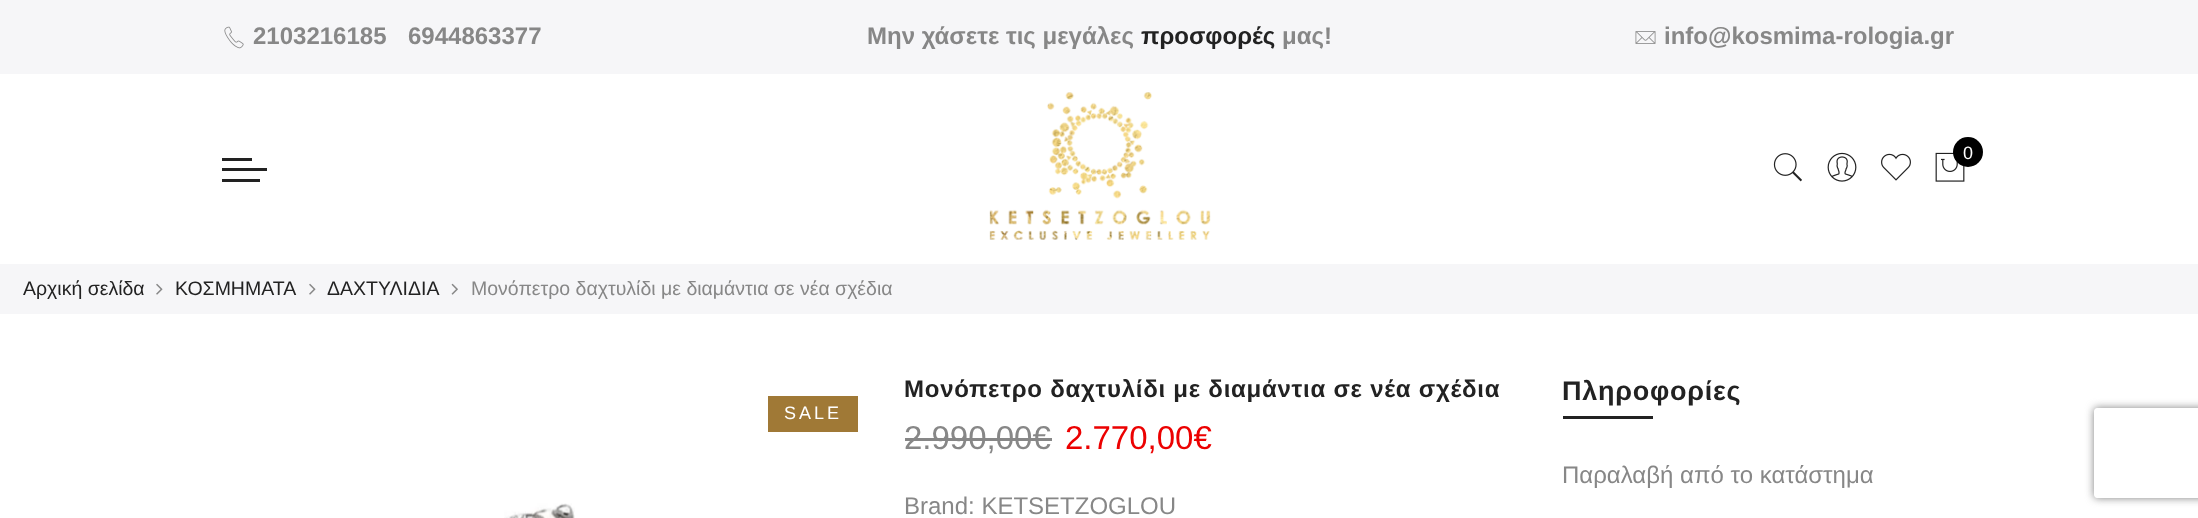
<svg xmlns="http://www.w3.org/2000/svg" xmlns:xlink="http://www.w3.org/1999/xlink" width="2198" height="518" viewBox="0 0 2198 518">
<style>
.cls-1{font:bold 24px Liberation Sans;fill:#878787}
.cls-2{font:bold 24px Liberation Sans;fill:#222222}
.cls-3{font:18px Liberation Sans;fill:#ffffff}
.cls-4{font:19.5px Liberation Sans;fill:#222222}
.cls-5{font:19.5px Liberation Sans;fill:#878787}
.cls-6{font:18px Liberation Sans;letter-spacing:3px;fill:#ffffff}
.cls-7{font:bold 24px Liberation Sans;letter-spacing:0.75px;fill:#222222}
.cls-8{font:33px Liberation Sans;fill:#878787}
.cls-9{font:33px Liberation Sans;fill:#ec0101}
.cls-10{font:24px Liberation Sans;fill:#878787}
.cls-11{font:bold 27px Liberation Sans;letter-spacing:0.75px;fill:#222222}
</style>
<defs>
<clipPath id="clip1"><path d="M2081 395H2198V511H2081ZM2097 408H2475C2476.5 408 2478 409.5 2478 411V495C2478 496.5 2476.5 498 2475 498H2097C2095.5 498 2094 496.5 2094 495V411C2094 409.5 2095.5 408 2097 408Z" clip-rule="evenodd"/></clipPath>
</defs>
<rect width="100%" height="100%" fill="#ffffff"/>
<rect fill="#f6f6f8" x="0" y="0" width="2198" height="74"/>
<image xlink:href="image0.png" x="224" y="26" width="20" height="23"/>
<image xlink:href="image1.png" x="1635" y="31" width="21" height="13"/>
<image xlink:href="image2.png" x="989" y="92" width="222" height="148"/>
<image xlink:href="image3.png" x="1773" y="153" width="29" height="29"/>
<image xlink:href="image4.png" x="1827" y="152" width="30" height="30"/>
<image xlink:href="image5.png" x="1881" y="153" width="30" height="28"/>
<image xlink:href="image6.png" x="1935" y="152" width="30" height="30"/>
<circle fill="#000000" cx="1968" cy="152" r="15"/>
<rect fill="#222222" x="222" y="158" width="30" height="3"/>
<rect fill="#222222" x="222" y="168" width="45" height="3"/>
<rect fill="#222222" x="222" y="179" width="38" height="3"/>
<rect fill="#f6f6f8" x="0" y="264" width="2198" height="50"/>
<image xlink:href="image7.png" x="156" y="283" width="7" height="12"/>
<image xlink:href="image7.png" x="309" y="283" width="7" height="12"/>
<image xlink:href="image8.png" x="451" y="283" width="7" height="12"/>
<rect fill="#a07936" x="768" y="396" width="90" height="36"/>
<image xlink:href="image9.png" x="504" y="503" width="71" height="15"/>
<rect fill="#878787" x="905" y="438" width="147" height="3"/>
<rect fill="#222222" x="1563" y="416" width="90" height="3"/>
<g clip-path="url(#clip1)">
<rect fill="#808080" filter="blur(4px)" x="2094" y="408" width="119" height="90" rx="3"/>
</g>
<text class="cls-1" x="253" y="44">2103216185</text>
<text class="cls-1" x="408" y="44">6944863377</text>
<text class="cls-1" x="867" y="44">Μην χάσετε τις μεγάλες</text>
<text class="cls-2" x="1141" y="44">προσφορές</text>
<text class="cls-1" x="1282" y="44">μας!</text>
<text class="cls-1" x="1664" y="44">info@kosmima-rologia.gr</text>
<text class="cls-3" x="1963" y="159">0</text>
<text class="cls-4" x="23" y="295">Αρχική σελίδα</text>
<text class="cls-4" x="175" y="295">ΚΟΣΜΗΜΑΤΑ</text>
<text class="cls-4" x="327" y="295">ΔΑΧΤΥΛΙΔΙΑ</text>
<text class="cls-5" x="471" y="295">Μονόπετρο δαχτυλίδι με διαμάντια σε νέα σχέδια</text>
<text class="cls-6" x="784" y="419">SALE</text>
<text class="cls-7" x="904" y="397">Μονόπετρο δαχτυλίδι με διαμάντια σε νέα σχέδια</text>
<text class="cls-8" x="904" y="449">2.990,00€</text>
<text class="cls-9" x="1065" y="449">2.770,00€</text>
<text class="cls-10" x="904" y="514">Βrand: KETSETZOGLOU</text>
<text class="cls-11" x="1562" y="400">Πληροφορίες</text>
<text class="cls-10" x="1562" y="483">Παραλαβή από το κατάστημα</text>
</svg>
